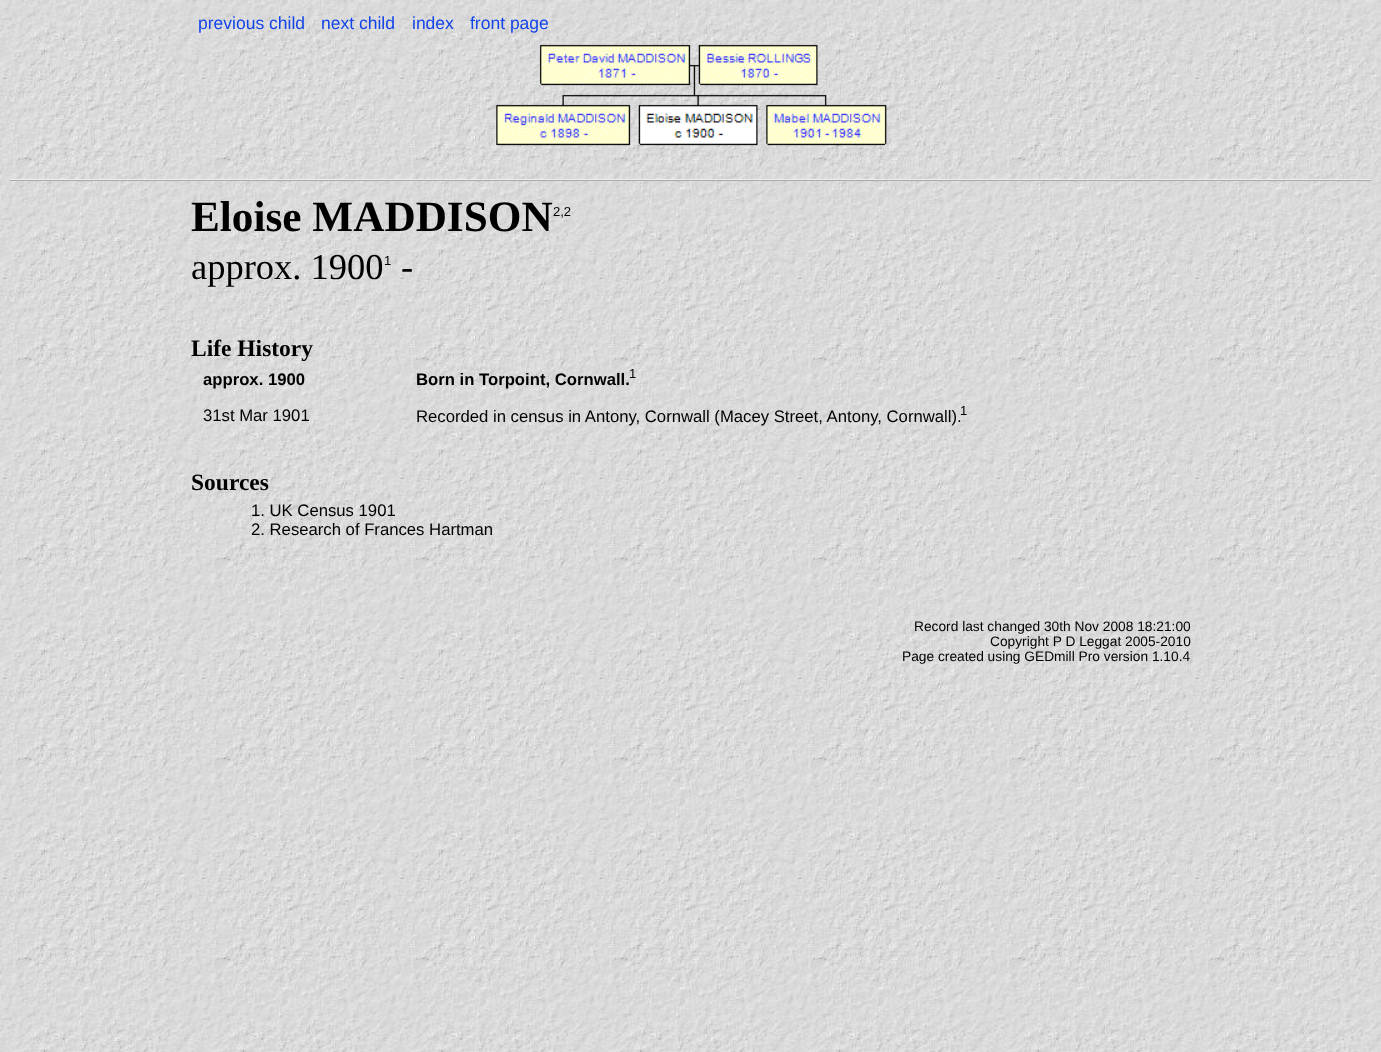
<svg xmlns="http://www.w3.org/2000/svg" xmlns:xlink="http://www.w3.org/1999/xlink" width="1381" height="1052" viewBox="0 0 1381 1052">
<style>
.cls-1{font:17.5px Liberation Sans;fill:#1344e9}
.cls-2{font:bold 43.25px Liberation Serif;fill:#000000}
.cls-3{font:13px Liberation Sans;fill:#000000}
.cls-4{font:36.5px Liberation Serif;fill:#000000}
.cls-5{font:bold 23.5px Liberation Serif;fill:#000000}
.cls-6{font:bold 16.7px Liberation Sans;fill:#000000}
.cls-7{font:16.7px Liberation Sans;fill:#000000}
.cls-8{font:13.75px Liberation Sans;fill:#000000}
</style>
<rect width="100%" height="100%" fill="#ffffff"/>
<image xlink:href="image0.png" x="0" y="0" width="1381" height="1052"/>
<image xlink:href="image1.png" x="496" y="44" width="391" height="102"/>
<rect fill="#eeeeee" x="10" y="179" width="1361" height="1"/>
<rect fill="#aaaaaa" x="10" y="180" width="1361" height="1"/>
<text class="cls-1" x="198" y="29">previous child</text>
<text class="cls-1" x="321" y="29">next child</text>
<text class="cls-1" x="412" y="29">index</text>
<text class="cls-1" x="470" y="29">front page</text>
<text class="cls-2" x="191" y="231">Eloise MADDISON</text>
<text class="cls-3" x="553" y="216">2,2</text>
<text class="cls-4" x="191" y="279">approx. 1900</text>
<text class="cls-3" x="384" y="265">1</text>
<text class="cls-4" x="401" y="279">-</text>
<text class="cls-5" x="191" y="356">Life History</text>
<text class="cls-6" x="203" y="385">approx. 1900</text>
<text class="cls-6" x="416" y="385">Born in Torpoint, Cornwall.</text>
<text class="cls-3" x="629" y="378">1</text>
<text class="cls-7" x="203" y="421">31st Mar 1901</text>
<text class="cls-7" x="416" y="422">Recorded in census in Antony, Cornwall (Macey Street, Antony, Cornwall).</text>
<text class="cls-3" x="960" y="415">1</text>
<text class="cls-5" x="191" y="490">Sources</text>
<text class="cls-7"><tspan x="251" y="516">1. UK Census 1901</tspan><tspan x="251" y="535">2. Research of Frances Hartman</tspan></text>
<text class="cls-8" x="914" y="631">Record last changed 30th Nov 2008 18:21:00</text>
<text class="cls-8" x="990" y="646">Copyright P D Leggat 2005-2010</text>
<text class="cls-8" x="902" y="661">Page created using GEDmill Pro version 1.10.4</text>
</svg>
